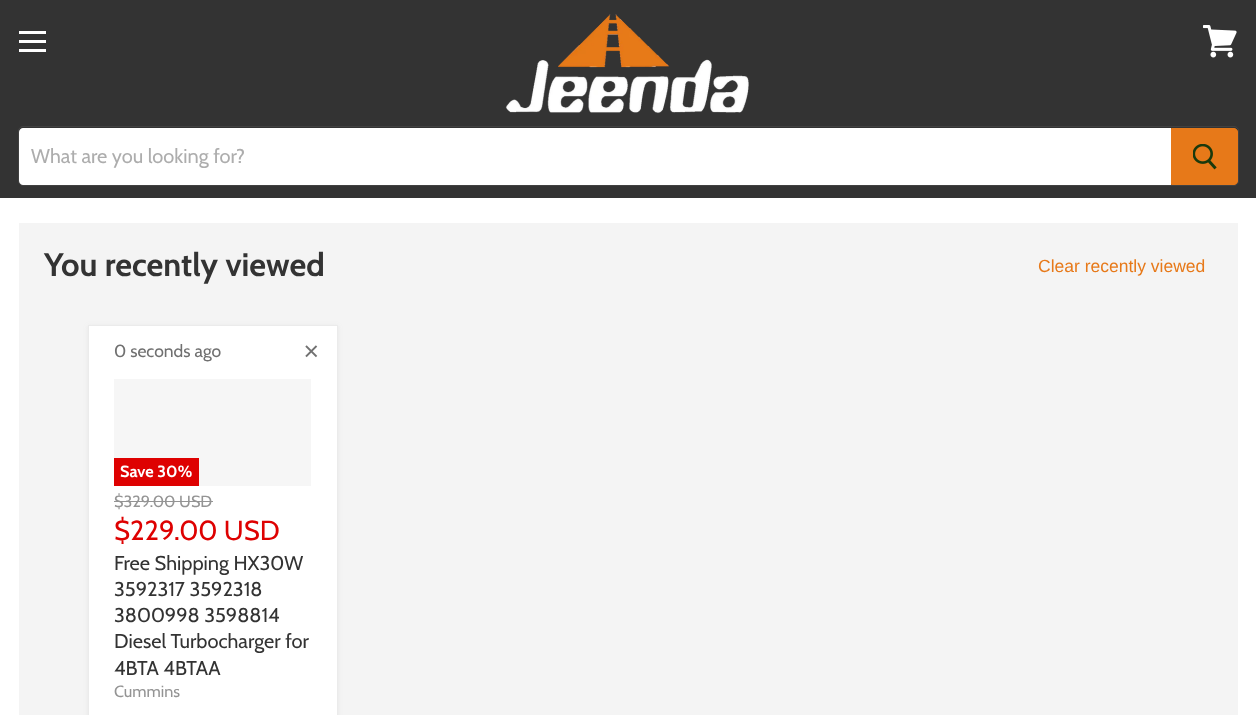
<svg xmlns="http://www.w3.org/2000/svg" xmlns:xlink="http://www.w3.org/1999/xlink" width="1256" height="715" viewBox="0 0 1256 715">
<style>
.cls-1{font:20px Cabin;fill:#adadad}
.cls-2{font:bold 32.5px Cabin;fill:#333333}
.cls-3{font:17.5px Liberation Sans;fill:#e77919}
.cls-4{font:17.5px Cabin;fill:#707070}
.cls-5{font:bold 16.25px Cabin;fill:#ffffff}
.cls-6{font:16.25px Cabin;fill:#949494}
.cls-7{font:27.5px Cabin;fill:#de0101}
.cls-8{font:20px Cabin;fill:#333333}
</style>
<rect width="100%" height="100%" fill="#ffffff"/>
<rect fill="#333333" x="0" y="0" width="1256" height="198"/>
<rect fill="#ffffff" x="19" y="31" width="27" height="3"/>
<rect fill="#ffffff" x="19" y="40" width="27" height="3"/>
<rect fill="#ffffff" x="19" y="49" width="27" height="3"/>
<image xlink:href="image0.png" x="1203" y="25" width="34" height="33"/>
<image xlink:href="image1.png" x="505" y="14" width="244" height="100"/>
<rect fill="none" stroke="#7f7f7f" stroke-opacity="0.2" x="18.5" y="126.5" width="1220" height="59" rx="4.5"/>
<path fill="#ffffff" d="M23 128H1171V185H23C21 185 19 183 19 181V132C19 130 21 128 23 128Z"/>
<path fill="#e77919" stroke="#e77919" d="M1171.5 128.5H1234C1236 128.5 1237.5 130 1237.5 132V181C1237.5 183 1236 184.5 1234 184.5H1171.5Z"/>
<image xlink:href="image2.png" x="1193" y="144" width="24" height="26"/>
<rect fill="#f4f4f4" x="19" y="223" width="1219" height="492"/>
<rect fill="#7f7f7f" fill-opacity="0.11" filter="blur(2.5px)" x="88" y="326" width="250" height="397"/>
<rect fill="#ffffff" stroke="#ebebeb" x="88.5" y="325.5" width="249" height="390"/>
<image xlink:href="image3.png" x="305" y="345" width="13" height="13"/>
<rect fill="#f6f6f6" x="114" y="379" width="197" height="107"/>
<rect fill="#de0101" x="114" y="458" width="85" height="28"/>
<rect fill="#949494" x="114" y="501" width="99" height="1"/>
<text class="cls-1" x="31" y="163">What are you looking for?</text>
<text class="cls-2" x="44" y="276">You recently viewed</text>
<text class="cls-3" x="1038" y="272">Clear recently viewed</text>
<text class="cls-4" x="114" y="357">0 seconds ago</text>
<text class="cls-5" x="120" y="477">Save 30%</text>
<text class="cls-6" x="114" y="507">$329.00 USD</text>
<text class="cls-7" x="114" y="540">$229.00 USD</text>
<text class="cls-8"><tspan x="114" y="570">Free Shipping HX30W</tspan><tspan x="114" y="596">3592317 3592318</tspan><tspan x="114" y="622">3800998 3598814</tspan><tspan x="114" y="648">Diesel Turbocharger for</tspan><tspan x="114" y="675">4BTA 4BTAA</tspan></text>
<text class="cls-6" x="114" y="697">Cummins</text>
</svg>
